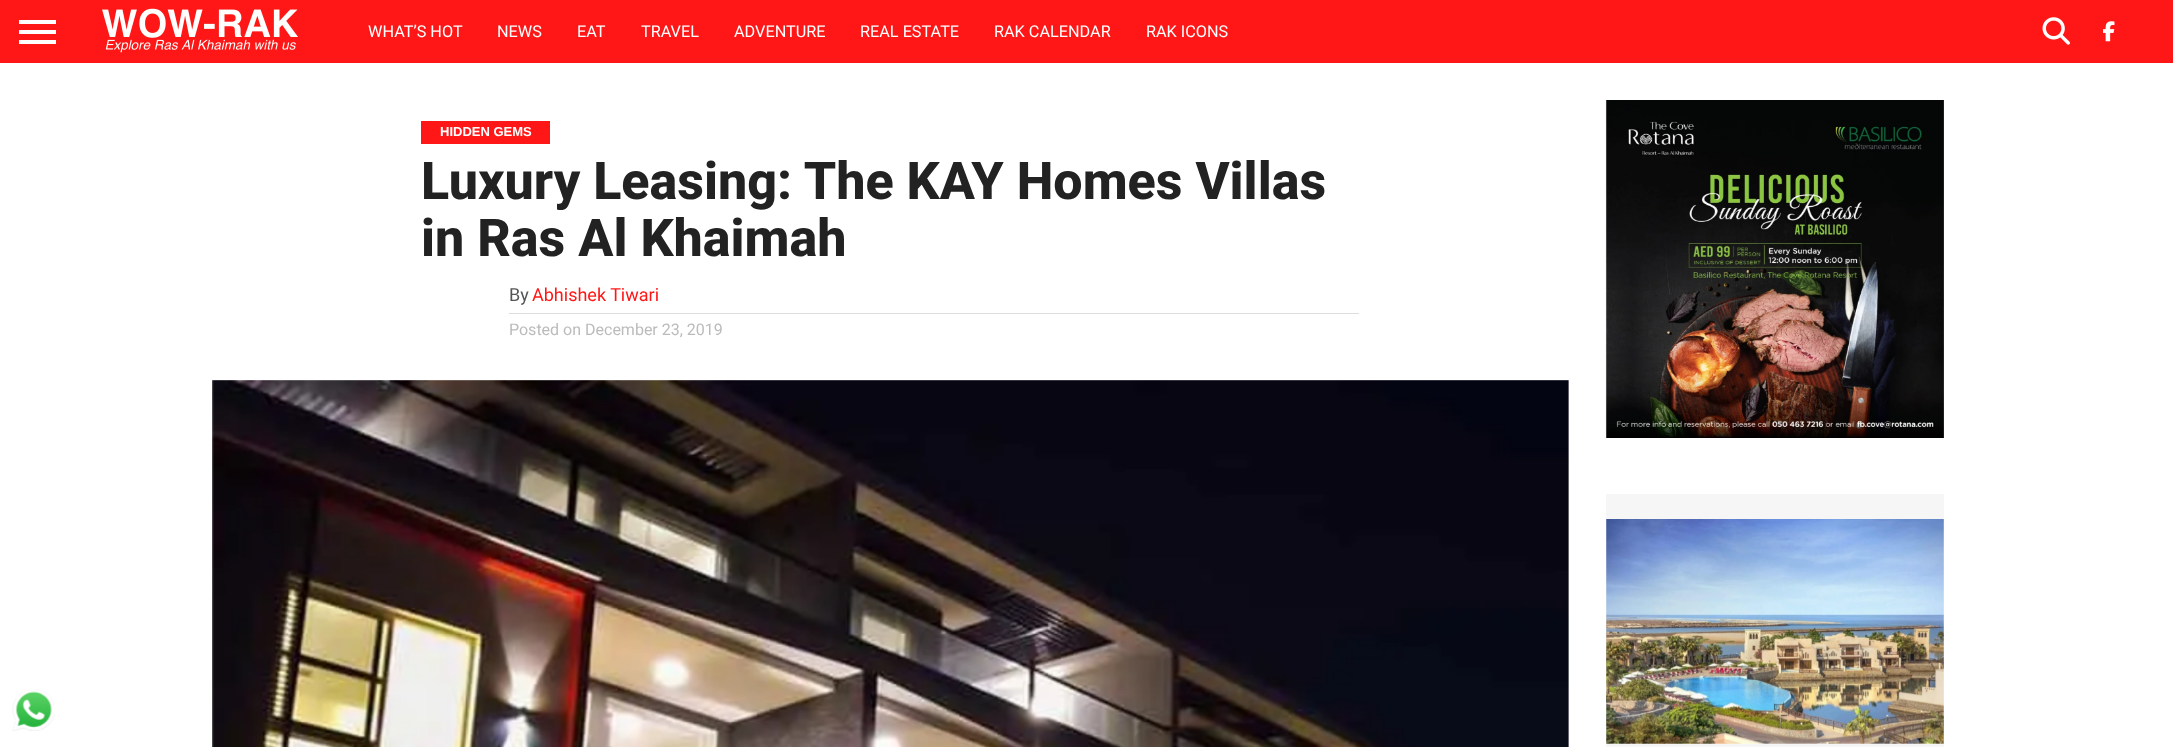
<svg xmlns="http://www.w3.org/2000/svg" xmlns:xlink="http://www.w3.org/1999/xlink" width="2173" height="747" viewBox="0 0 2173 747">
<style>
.cls-1{font:16.25px Roboto;fill:#ffffff}
.cls-2{font:bold 13px Liberation Sans;fill:#ffffff}
.cls-3{font:800 52px Roboto;fill:#222222}
.cls-4{font:18px Roboto;fill:#555555}
.cls-5{font:18px Roboto;fill:#ff1616}
.cls-6{font:16px Roboto;fill:#bbbbbb}
</style>
<rect width="100%" height="100%" fill="#ffffff"/>
<rect fill="#ff1616" x="0" y="0" width="2173" height="63"/>
<rect fill="#ffffff" x="19" y="20" width="37" height="4"/>
<rect fill="#ffffff" x="19" y="30" width="37" height="4"/>
<rect fill="#ffffff" x="19" y="40" width="37" height="4"/>
<image xlink:href="image0.png" x="102" y="8" width="196" height="45"/>
<image xlink:href="image1.png" x="2042" y="17" width="28" height="28"/>
<image xlink:href="image2.png" x="2103" y="21" width="12" height="21"/>
<rect fill="#ff1616" x="421" y="121" width="129" height="23"/>
<rect fill="#dddddd" x="509" y="313" width="850" height="1"/>
<image xlink:href="image3.png" x="212" y="380" width="1357" height="367"/>
<image xlink:href="image4.png" x="1605" y="100" width="339" height="338"/>
<rect fill="#f6f6f6" x="1606" y="494" width="338" height="253"/>
<image xlink:href="image5.png" x="1606" y="519" width="338" height="225"/>
<image xlink:href="image6.png" x="12" y="689" width="43" height="42"/>
<text class="cls-1" x="368" y="37">WHAT’S HOT</text>
<text class="cls-1" x="497" y="37">NEWS</text>
<text class="cls-1" x="577" y="37">EAT</text>
<text class="cls-1" x="641" y="37">TRAVEL</text>
<text class="cls-1" x="734" y="37">ADVENTURE</text>
<text class="cls-1" x="860" y="37">REAL ESTATE</text>
<text class="cls-1" x="994" y="37">RAK CALENDAR</text>
<text class="cls-1" x="1146" y="37">RAK ICONS</text>
<text class="cls-2" x="440" y="136">HIDDEN GEMS</text>
<text class="cls-3"><tspan x="421" y="199">Luxury Leasing: The KAY Homes Villas</tspan><tspan x="421" y="256">in Ras Al Khaimah</tspan></text>
<text class="cls-4" x="509" y="301">By</text>
<text class="cls-5" x="532" y="301">Abhishek Tiwari</text>
<text class="cls-6" x="509" y="335">Posted on December 23, 2019</text>
</svg>
